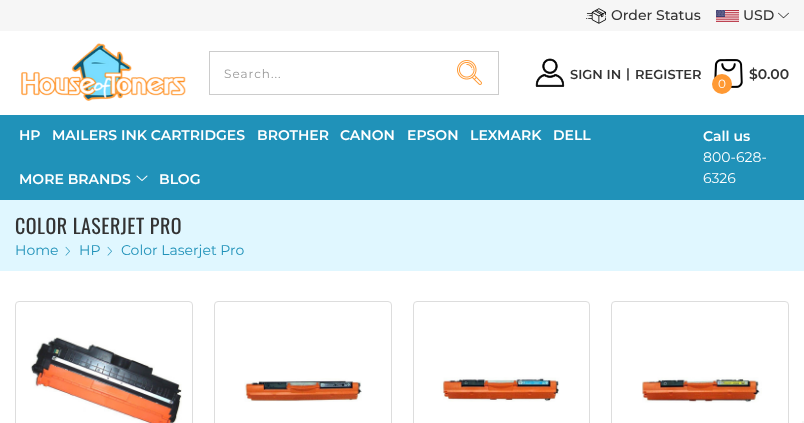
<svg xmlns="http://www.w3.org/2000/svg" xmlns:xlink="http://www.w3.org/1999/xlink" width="804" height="423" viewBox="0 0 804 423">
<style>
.cls-1{font:500 14px Montserrat;fill:#333333}
.cls-2{font:12px Montserrat;letter-spacing:1px;fill:#999999}
.cls-3{font:600 13px Montserrat;fill:#333333}
.cls-4{font:600 14px Montserrat;fill:#333333}
.cls-5{font:12px Montserrat;fill:#ffffff}
.cls-6{font:600 14px Montserrat;fill:#ffffff}
.cls-7{font:14px Montserrat;fill:#ffffff}
.cls-8{font:20px Oswald;letter-spacing:0.5px;fill:#333333}
.cls-9{font:14px Montserrat;fill:#2092b9}
</style>
<rect width="100%" height="100%" fill="#ffffff"/>
<rect fill="#f6f6f6" x="0" y="0" width="804" height="31"/>
<image xlink:href="image0.png" x="586" y="8" width="20" height="16"/>
<image xlink:href="image1.png" x="716" y="10" width="23" height="12"/>
<image xlink:href="image2.png" x="778" y="12" width="11" height="7"/>
<image xlink:href="image3.png" x="21" y="43" width="165" height="58"/>
<rect fill="none" stroke="#cccccc" x="209.5" y="51.5" width="289" height="43"/>
<image xlink:href="image4.png" x="457" y="60" width="25" height="25"/>
<image xlink:href="image5.png" x="535" y="58" width="30" height="29"/>
<image xlink:href="image6.png" x="714" y="59" width="29" height="29"/>
<circle fill="#ff9933" cx="722" cy="84" r="10"/>
<rect fill="#2092b9" x="0" y="115" width="804" height="85"/>
<image xlink:href="image7.png" x="136" y="175" width="12" height="6"/>
<rect fill="#e0f7ff" x="0" y="200" width="804" height="71"/>
<image xlink:href="image8.png" x="65" y="246" width="5" height="10"/>
<image xlink:href="image8.png" x="107" y="246" width="5" height="10"/>
<rect fill="none" stroke="#dddddd" x="15.5" y="301.5" width="177" height="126" rx="3.5"/>
<image xlink:href="image9.png" x="30" y="337" width="152" height="86"/>
<rect fill="none" stroke="#dddddd" x="214.5" y="301.5" width="177" height="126" rx="3.5"/>
<image xlink:href="image10.png" x="244" y="378" width="118" height="24"/>
<rect fill="none" stroke="#dddddd" x="413.5" y="301.5" width="176" height="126" rx="3.5"/>
<image xlink:href="image11.png" x="440" y="377" width="120" height="25"/>
<rect fill="none" stroke="#dddddd" x="611.5" y="301.5" width="177" height="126" rx="3.5"/>
<image xlink:href="image12.png" x="642" y="377" width="120" height="26"/>
<rect fill="#f5f5f5" x="802" y="421" width="2" height="2"/>
<text class="cls-1" x="611" y="20">Order Status</text>
<text class="cls-1" x="743" y="20">USD</text>
<text class="cls-2" x="224" y="78">Search...</text>
<text class="cls-3" x="570" y="79">SIGN IN</text>
<text class="cls-3" x="626" y="78">|</text>
<text class="cls-3" x="635" y="79">REGISTER</text>
<text class="cls-4" x="749" y="79">$0.00</text>
<text class="cls-5" x="718" y="88">0</text>
<text class="cls-6" x="19" y="140">HP</text>
<text class="cls-6" x="52" y="140">MAILERS INK CARTRIDGES</text>
<text class="cls-6" x="257" y="140">BROTHER</text>
<text class="cls-6" x="340" y="140">CANON</text>
<text class="cls-6" x="407" y="140">EPSON</text>
<text class="cls-6" x="470" y="140">LEXMARK</text>
<text class="cls-6" x="553" y="140">DELL</text>
<text class="cls-6" x="19" y="184">MORE BRANDS</text>
<text class="cls-6" x="159" y="184">BLOG</text>
<text class="cls-6" x="703" y="141">Call us</text>
<text class="cls-7"><tspan x="703" y="162">800-628-</tspan><tspan x="703" y="183">6326</tspan></text>
<text class="cls-8" x="15" y="234">COLOR LASERJET PRO</text>
<text class="cls-9" x="15" y="255">Home</text>
<text class="cls-9" x="79" y="255">HP</text>
<text class="cls-9" x="121" y="255">Color Laserjet Pro</text>
</svg>
